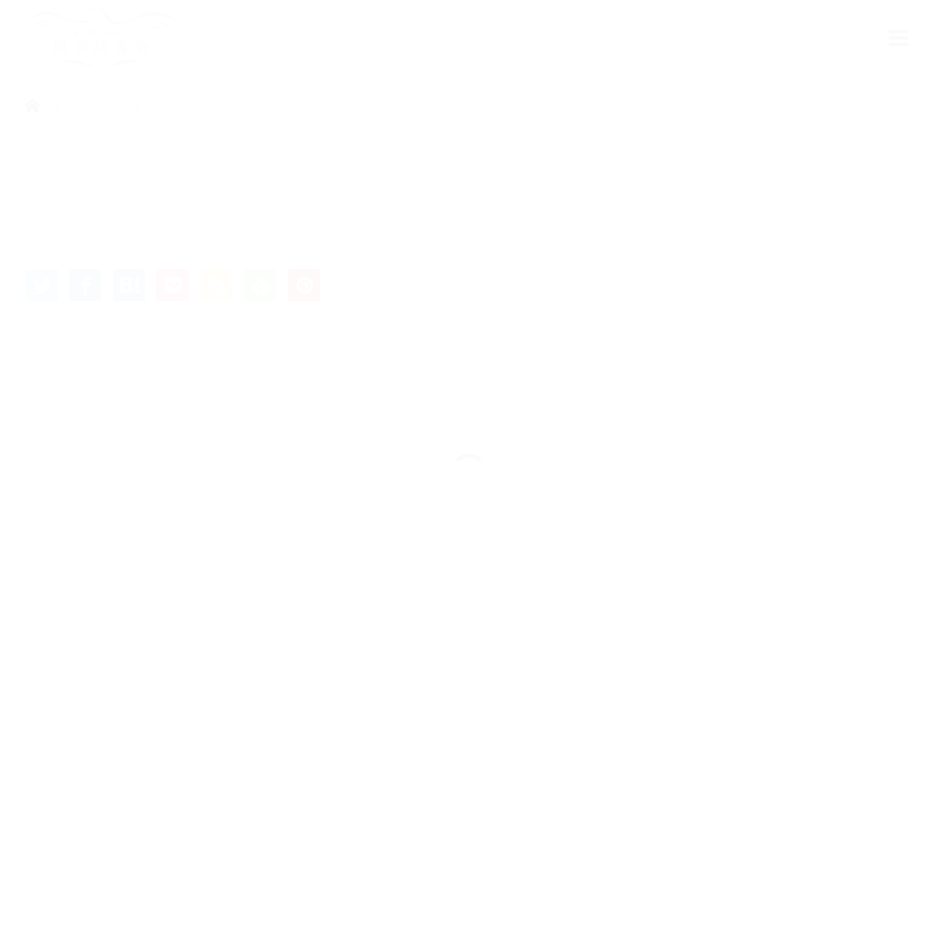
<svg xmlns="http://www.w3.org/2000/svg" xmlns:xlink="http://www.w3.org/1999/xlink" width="936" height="943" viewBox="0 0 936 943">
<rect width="100%" height="100%" fill="#ffffff"/>
<image xlink:href="image0.png" x="25" y="6" width="155" height="63"/>
<image xlink:href="image1.png" x="888" y="30" width="21" height="17"/>
<image xlink:href="image2.png" x="25" y="99" width="15" height="14"/>
<image xlink:href="image3.png" x="53" y="102" width="7" height="12"/>
<image xlink:href="image3.png" x="133" y="102" width="7" height="12"/>
<image xlink:href="image4.png" x="27" y="217" width="11" height="11"/>
<rect fill="#fcfdff" x="25" y="269" width="33" height="32" rx="2.5"/>
<image xlink:href="image5.png" x="32" y="278" width="20" height="16"/>
<rect fill="#fbfcfd" x="69" y="269" width="32" height="32" rx="2.5"/>
<image xlink:href="image6.png" x="81" y="275" width="10" height="21"/>
<rect fill="#fbfcfe" x="113" y="269" width="32" height="32" rx="2.5"/>
<image xlink:href="image7.png" x="120" y="276" width="20" height="18"/>
<rect fill="#fffbfc" x="156" y="269" width="33" height="32" rx="2.5"/>
<image xlink:href="image8.png" x="164" y="277" width="19" height="17"/>
<rect fill="#fffefb" x="200" y="269" width="33" height="32" rx="2.5"/>
<image xlink:href="image9.png" x="208" y="276" width="19" height="19"/>
<rect fill="#fcfefc" x="244" y="269" width="32" height="32" rx="2.5"/>
<image xlink:href="image10.png" x="251" y="278" width="20" height="18"/>
<rect fill="#fefafa" x="288" y="269" width="32" height="32" rx="2.5"/>
<image xlink:href="image11.png" x="296" y="277" width="18" height="17"/>
<path fill="none" stroke="#fbfbfb" stroke-width="3.8" d="M457 460.5C463.5 454 474 454 480.5 460.5"/>
</svg>
